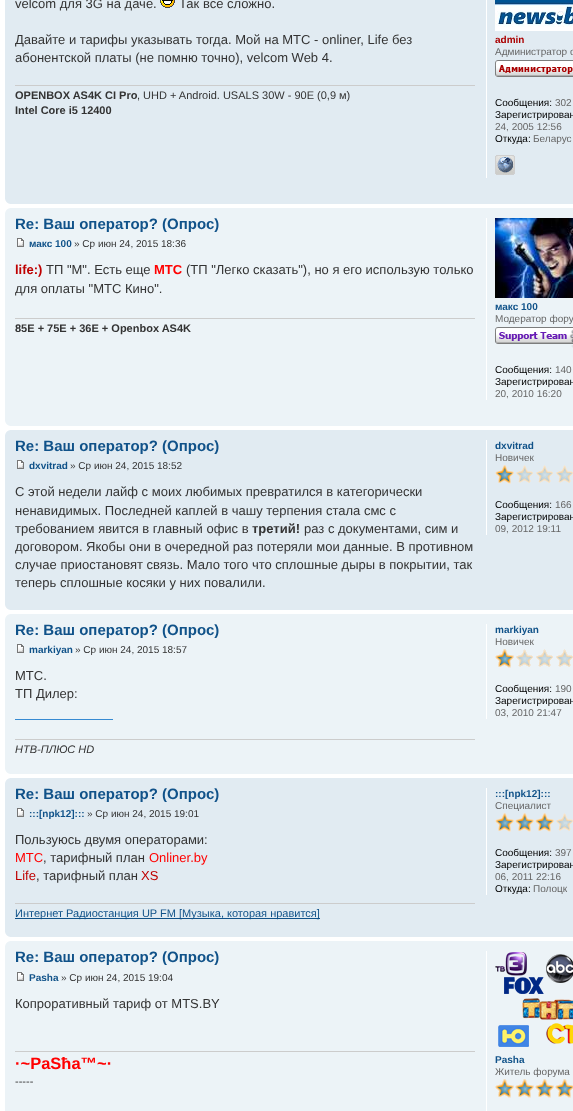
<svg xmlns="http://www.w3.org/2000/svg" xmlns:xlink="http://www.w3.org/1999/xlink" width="573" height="1111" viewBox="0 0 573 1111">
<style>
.cls-1{font:13px Liberation Sans;fill:#333333}
.cls-2{font:bold 11px Liberation Sans;fill:#333333}
.cls-3{font:11px Liberation Sans;fill:#333333}
.cls-4{font:bold 10px Liberation Sans;fill:#aa0000}
.cls-5{font:10px Liberation Sans;fill:#666666}
.cls-6{font:10px Liberation Sans;fill:#000000}
.cls-7{font:bold 15px Liberation Sans;fill:#105289}
.cls-8{font:bold 10px Liberation Sans;fill:#105289}
.cls-9{font:10px Liberation Sans;fill:#333333}
.cls-10{font:bold 13px Liberation Sans;fill:#bf0000}
.cls-11{font:bold 13px Liberation Sans;fill:#ff0000}
.cls-12{font:bold 13px Liberation Sans;fill:#333333}
.cls-13{font:italic 11px Liberation Sans;fill:#333333}
.cls-14{font:13px Liberation Sans;fill:#ff0000}
.cls-15{font:13px Liberation Sans;fill:#bf0000}
.cls-16{font:11px Liberation Sans;fill:#105289}
.cls-17{font:bold 16.5px Liberation Sans;fill:#ff0000}
</style>
<rect width="100%" height="100%" fill="#ffffff"/>
<rect fill="#e1ebf2" x="5" y="0" width="568" height="204"/>
<image xlink:href="image0.png" x="160" y="0" width="15" height="8"/>
<rect fill="#cccccc" x="15" y="85" width="460" height="1"/>
<rect fill="#ffffff" x="486" y="0" width="1" height="178"/>
<image xlink:href="image1.png" x="495" y="0" width="78" height="31"/>
<image xlink:href="image2.png" x="495" y="60" width="78" height="17"/>
<image xlink:href="image3.png" x="495" y="155" width="20" height="20"/>
<image xlink:href="image4.png" x="5" y="199" width="5" height="5"/>
<rect fill="#ecf3f7" x="5" y="208" width="568" height="218"/>
<image xlink:href="image5.png" x="5" y="208" width="5" height="5"/>
<image xlink:href="image6.png" x="17" y="238" width="7" height="9"/>
<rect fill="#cccccc" x="15" y="318" width="460" height="1"/>
<rect fill="#ffffff" x="486" y="218" width="1" height="182"/>
<image xlink:href="image7.png" x="495" y="218" width="78" height="80"/>
<image xlink:href="image8.png" x="495" y="327" width="78" height="21"/>
<image xlink:href="image9.png" x="5" y="421" width="5" height="5"/>
<rect fill="#e1ebf2" x="5" y="430" width="568" height="180"/>
<image xlink:href="image10.png" x="5" y="430" width="5" height="5"/>
<image xlink:href="image11.png" x="17" y="460" width="7" height="9"/>
<rect fill="#ffffff" x="486" y="440" width="1" height="95"/>
<image xlink:href="image12.png" x="495" y="465" width="78" height="19"/>
<image xlink:href="image4.png" x="5" y="605" width="5" height="5"/>
<rect fill="#ecf3f7" x="5" y="614" width="568" height="160"/>
<image xlink:href="image5.png" x="5" y="614" width="5" height="5"/>
<image xlink:href="image6.png" x="17" y="644" width="7" height="9"/>
<rect fill="#368ad2" x="15" y="719" width="98" height="1"/>
<rect fill="#cccccc" x="15" y="739" width="460" height="1"/>
<rect fill="#ffffff" x="486" y="624" width="1" height="95"/>
<image xlink:href="image13.png" x="495" y="649" width="78" height="19"/>
<image xlink:href="image9.png" x="5" y="769" width="5" height="5"/>
<rect fill="#e1ebf2" x="5" y="778" width="568" height="159"/>
<image xlink:href="image10.png" x="5" y="778" width="5" height="5"/>
<image xlink:href="image11.png" x="17" y="808" width="7" height="9"/>
<rect fill="#cccccc" x="15" y="903" width="460" height="1"/>
<rect fill="#105289" x="15" y="918" width="305" height="1"/>
<rect fill="#ffffff" x="486" y="788" width="1" height="107"/>
<image xlink:href="image14.png" x="495" y="813" width="78" height="19"/>
<image xlink:href="image4.png" x="5" y="932" width="5" height="5"/>
<rect fill="#ecf3f7" x="5" y="941" width="568" height="170"/>
<image xlink:href="image5.png" x="5" y="941" width="5" height="5"/>
<image xlink:href="image6.png" x="17" y="972" width="7" height="9"/>
<rect fill="#cccccc" x="15" y="1051" width="460" height="1"/>
<rect fill="#ffffff" x="486" y="951" width="1" height="160"/>
<image xlink:href="image15.png" x="495" y="952" width="78" height="95"/>
<image xlink:href="image16.png" x="495" y="1079" width="78" height="19"/>
<text class="cls-1" x="15" y="8">velcom для 3G на даче.</text>
<text class="cls-1" x="179" y="8">Так все сложно.</text>
<text class="cls-1"><tspan x="15" y="44">Давайте и тарифы указывать тогда. Мой на МТС - onliner, Life без</tspan><tspan x="15" y="62">абонентской платы (не помню точно), velcom Web 4.</tspan></text>
<text class="cls-2" x="15" y="99">OPENBOX AS4K CI Pro</text>
<text class="cls-3" x="137" y="99">, UHD + Android. USALS 30W - 90E (0,9 м)</text>
<text class="cls-2" x="15" y="114">Intel Core i5 12400</text>
<text class="cls-4" x="495" y="43">admin</text>
<text class="cls-5" x="495" y="55">Администратор с</text>
<text class="cls-6" x="495" y="106">Сообщения:</text>
<text class="cls-5" x="555" y="106">302</text>
<text class="cls-6" x="495" y="118">Зарегистрирован</text>
<text class="cls-5" x="495" y="130">24, 2005 12:56</text>
<text class="cls-6" x="495" y="142">Откуда:</text>
<text class="cls-5" x="533" y="142">Беларус</text>
<text class="cls-7" x="15" y="229">Re: Ваш оператор? (Опрос)</text>
<text class="cls-8" x="29" y="247">макс 100</text>
<text class="cls-9" x="74" y="247">» Ср июн 24, 2015 18:36</text>
<text class="cls-10" x="15" y="274">life:)</text>
<text class="cls-1" x="46" y="274">ТП "M". Есть еще</text>
<text class="cls-11" x="154" y="274">МТС</text>
<text class="cls-1" x="186" y="274">(ТП "Легко сказать"), но я его использую только</text>
<text class="cls-1" x="15" y="293">для оплаты "МТС Кино".</text>
<text class="cls-2" x="15" y="332">85E + 75E + 36E + Openbox AS4K</text>
<text class="cls-8" x="495" y="310">макс 100</text>
<text class="cls-5" x="495" y="322">Модератор фору</text>
<text class="cls-6" x="495" y="373">Сообщения:</text>
<text class="cls-5" x="555" y="373">140</text>
<text class="cls-6" x="495" y="385">Зарегистрирован</text>
<text class="cls-5" x="495" y="397">20, 2010 16:20</text>
<text class="cls-7" x="15" y="451">Re: Ваш оператор? (Опрос)</text>
<text class="cls-8" x="29" y="469">dxvitrad</text>
<text class="cls-9" x="70" y="469">» Ср июн 24, 2015 18:52</text>
<text class="cls-1"><tspan x="15" y="496">С этой недели лайф с моих любимых превратился в категорически</tspan><tspan x="15" y="515">ненавидимых. Последней каплей в чашу терпения стала смс с</tspan><tspan x="15" y="533">требованием явится в главный офис в</tspan></text>
<text class="cls-12" x="252" y="533">третий!</text>
<text class="cls-1" x="304" y="533">раз с документами, сим и</text>
<text class="cls-1"><tspan x="15" y="551">договором. Якобы они в очередной раз потеряли мои данные. В противном</tspan><tspan x="15" y="569">случае приостановят связь. Мало того что сплошные дыры в покрытии, так</tspan><tspan x="15" y="587">теперь сплошные косяки у них повалили.</tspan></text>
<text class="cls-8" x="495" y="449">dxvitrad</text>
<text class="cls-5" x="495" y="461">Новичек</text>
<text class="cls-6" x="495" y="508">Сообщения:</text>
<text class="cls-5" x="555" y="508">166</text>
<text class="cls-6" x="495" y="520">Зарегистрирован</text>
<text class="cls-5" x="495" y="532">09, 2012 19:11</text>
<text class="cls-7" x="15" y="635">Re: Ваш оператор? (Опрос)</text>
<text class="cls-8" x="29" y="653">markiyan</text>
<text class="cls-9" x="75" y="653">» Ср июн 24, 2015 18:57</text>
<text class="cls-1"><tspan x="15" y="680">МТС.</tspan><tspan x="15" y="698">ТП Дилер:</tspan></text>
<text class="cls-13" x="15" y="753">НТВ-ПЛЮС HD</text>
<text class="cls-8" x="495" y="633">markiyan</text>
<text class="cls-5" x="495" y="645">Новичек</text>
<text class="cls-6" x="495" y="692">Сообщения:</text>
<text class="cls-5" x="555" y="692">190</text>
<text class="cls-6" x="495" y="704">Зарегистрирован</text>
<text class="cls-5" x="495" y="716">03, 2010 21:47</text>
<text class="cls-7" x="15" y="799">Re: Ваш оператор? (Опрос)</text>
<text class="cls-8" x="29" y="817">:::[npk12]:::</text>
<text class="cls-9" x="87" y="817">» Ср июн 24, 2015 19:01</text>
<text class="cls-1" x="15" y="844">Пользуюсь двумя операторами:</text>
<text class="cls-14" x="15" y="862">МТС</text>
<text class="cls-1" x="43" y="862">, тарифный план</text>
<text class="cls-14" x="149" y="862">Onliner.by</text>
<text class="cls-15" x="15" y="880">Life</text>
<text class="cls-1" x="36" y="880">, тарифный план</text>
<text class="cls-15" x="141" y="880">XS</text>
<text class="cls-16" x="15" y="917">Интернет Радиостанция UP FM [Музыка, которая нравится]</text>
<text class="cls-8" x="495" y="797">:::[npk12]:::</text>
<text class="cls-5" x="495" y="809">Специалист</text>
<text class="cls-6" x="495" y="856">Сообщения:</text>
<text class="cls-5" x="555" y="856">397</text>
<text class="cls-6" x="495" y="868">Зарегистрирован</text>
<text class="cls-5" x="495" y="880">06, 2011 22:16</text>
<text class="cls-6" x="495" y="892">Откуда:</text>
<text class="cls-5" x="533" y="892">Полоцк</text>
<text class="cls-7" x="15" y="962">Re: Ваш оператор? (Опрос)</text>
<text class="cls-8" x="29" y="981">Pasha</text>
<text class="cls-9" x="61" y="981">» Ср июн 24, 2015 19:04</text>
<text class="cls-1" x="15" y="1008">Копроративный тариф от MTS.BY</text>
<text class="cls-17" x="15" y="1069">·~PaSћa™~·</text>
<text class="cls-3" x="15" y="1085">-----</text>
<text class="cls-8" x="495" y="1063">Pasha</text>
<text class="cls-5" x="495" y="1075">Житель форума</text>
</svg>
